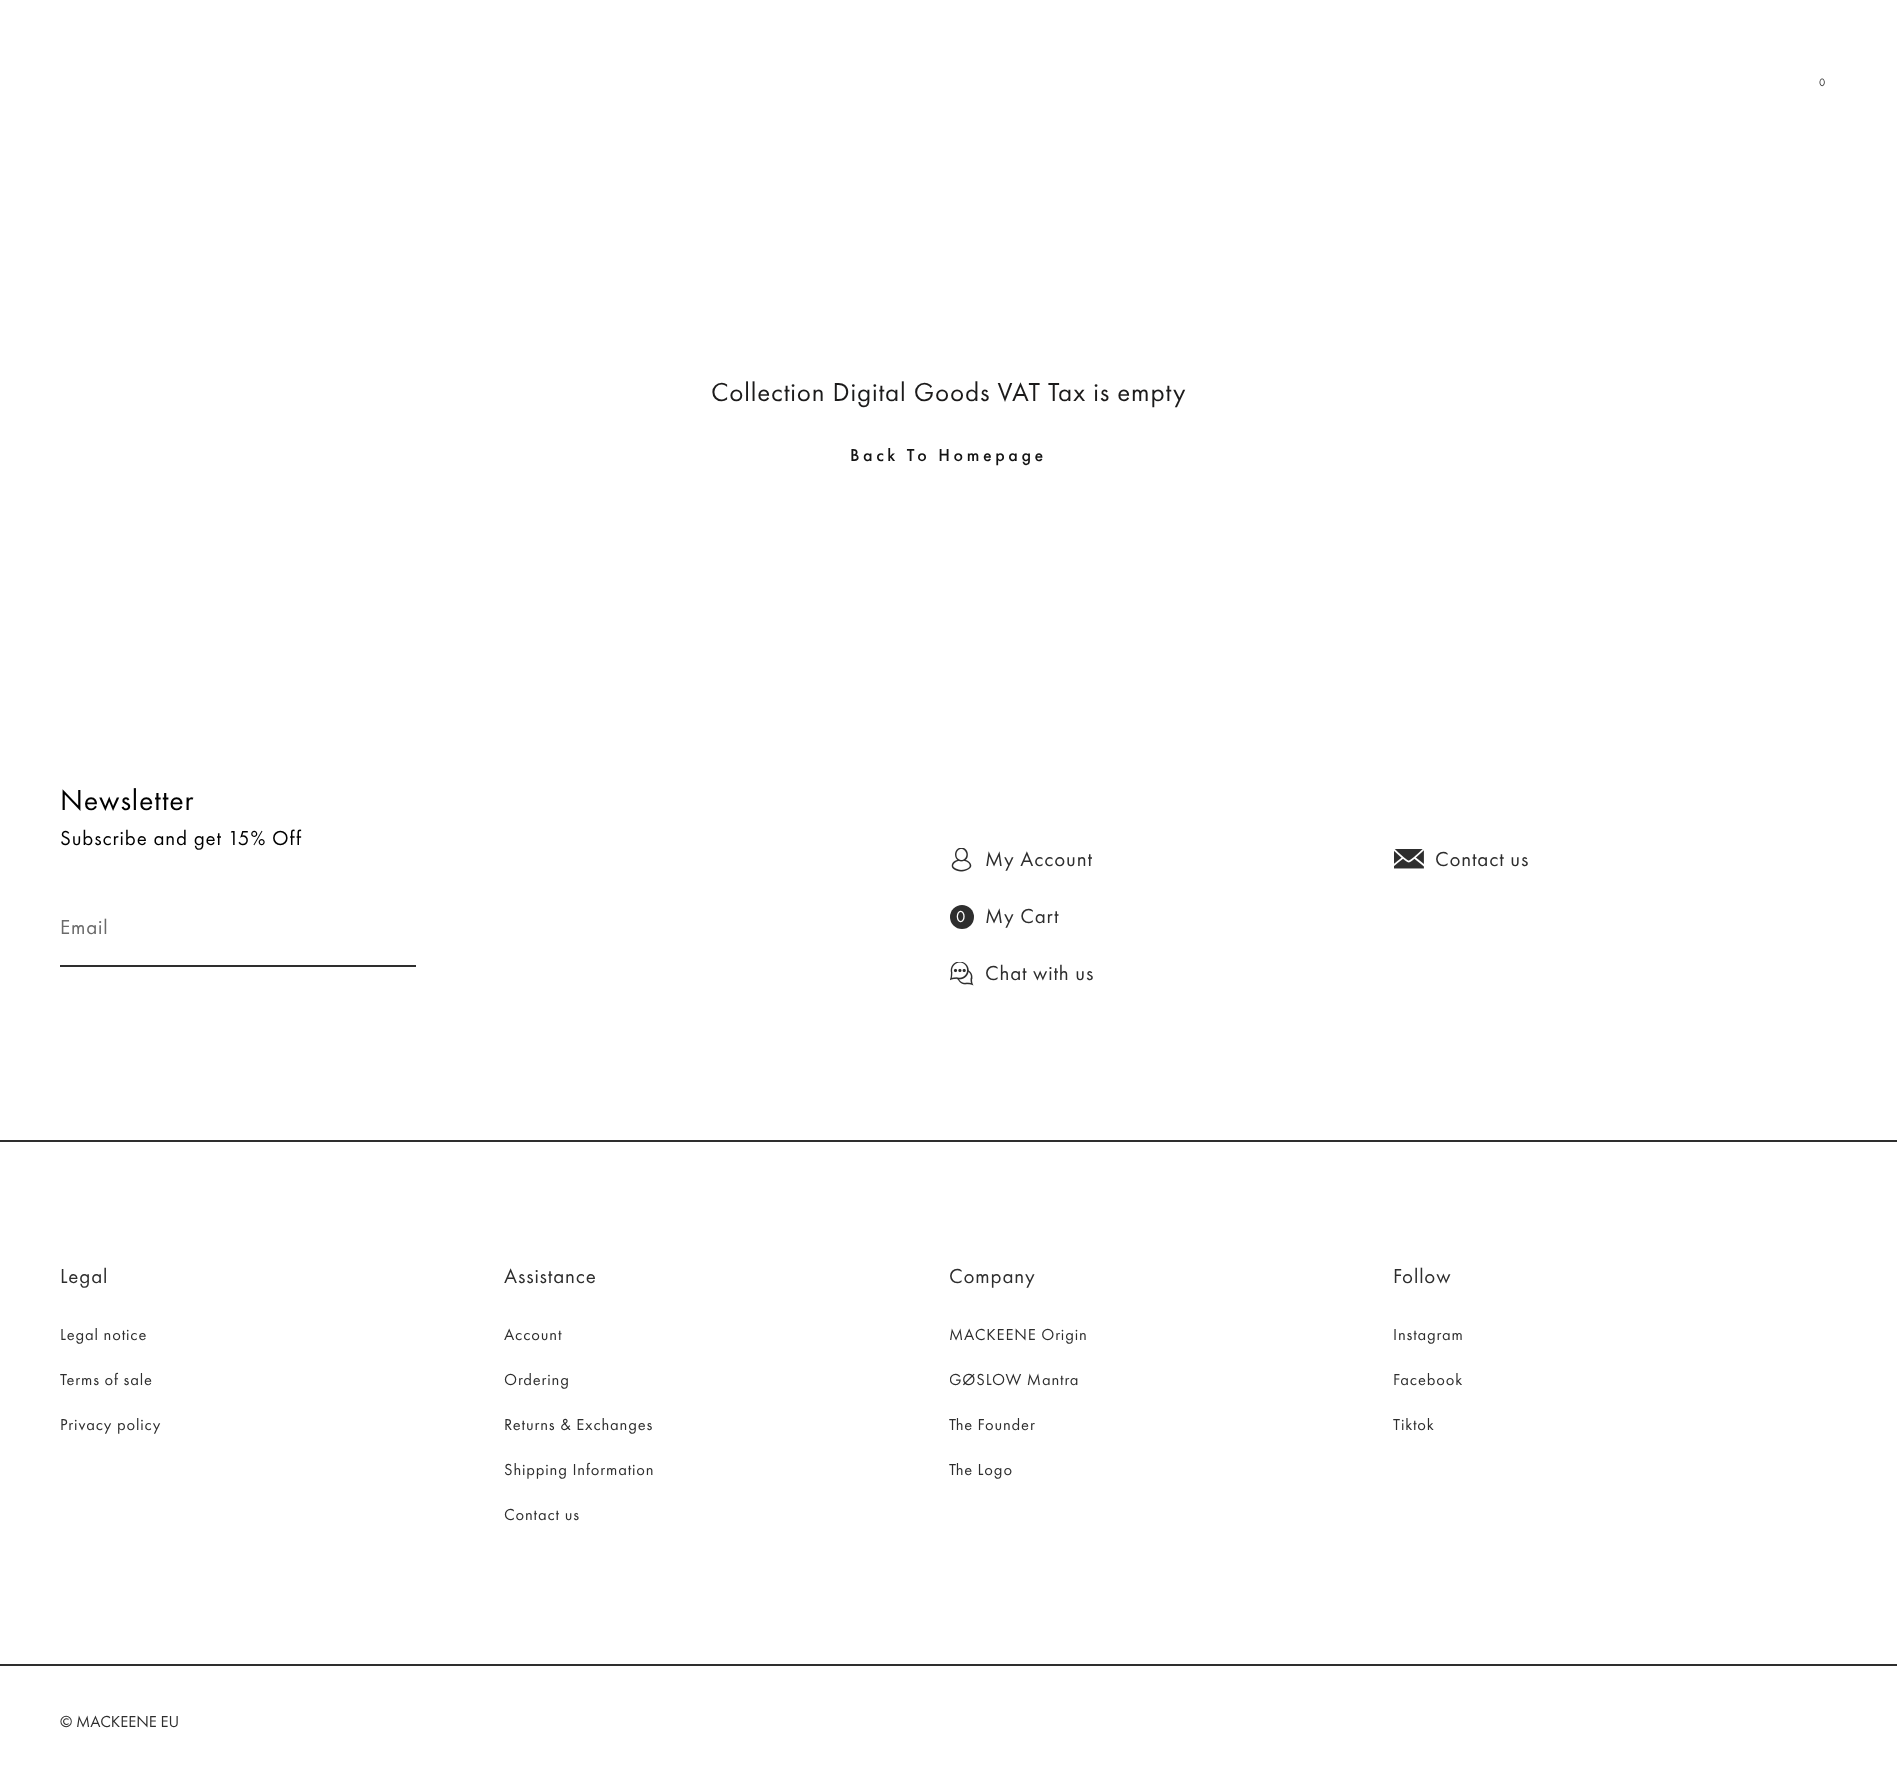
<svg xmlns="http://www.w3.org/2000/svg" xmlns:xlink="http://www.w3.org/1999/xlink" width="1897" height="1777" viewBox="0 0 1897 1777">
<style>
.cls-1{font:11px Futura PT;letter-spacing:1px;fill:#2e2e2e}
.cls-2{font:27px Futura PT;letter-spacing:0.85px;fill:#1c1b1b}
.cls-3{font:500 18px Futura PT;letter-spacing:3.6px;fill:#141414}
.cls-4{font:30px Futura PT;letter-spacing:0.85px;fill:#000000}
.cls-5{font:21px Futura PT;letter-spacing:0.85px;fill:#000000}
.cls-6{font:21px Futura PT;letter-spacing:0.85px;fill:#6a6a6a}
.cls-7{font:21px Futura PT;letter-spacing:0.85px;fill:#2e2e2e}
.cls-8{font:16.5px Futura PT;letter-spacing:0.85px;fill:#ffffff}
.cls-9{font:16.5px Futura PT;letter-spacing:0.85px;fill:#2e2e2e}
.cls-10{font:16.5px Futura PT;fill:#2e2e2e}
</style>
<defs>
<clipPath id="clip1"><rect x="950" y="1292" width="444" height="207"/></clipPath>
</defs>
<rect width="100%" height="100%" fill="#ffffff"/>
<rect fill="#2e2e2e" x="0" y="1140" width="1897" height="2"/>
<rect fill="#2e2e2e" x="60" y="965" width="356" height="2"/>
<image xlink:href="image0.png" x="951" y="848" width="21" height="24"/>
<circle fill="#2e2e2e" cx="962" cy="917" r="12"/>
<image xlink:href="image1.png" x="950" y="962" width="24" height="24"/>
<image xlink:href="image2.png" x="1394" y="849" width="30" height="20"/>
<rect fill="#2e2e2e" x="0" y="1664" width="1897" height="2"/>
<text class="cls-1" x="1819" y="86">0</text>
<text class="cls-2" x="711" y="401">Collection Digital Goods VAT Tax is empty</text>
<text class="cls-3" x="850" y="461">Back To Homepage</text>
<text class="cls-4" x="60" y="810">Newsletter</text>
<text class="cls-5" x="60" y="845">Subscribe and get 15% Off</text>
<text class="cls-6" x="60" y="934">Email</text>
<text class="cls-7" x="985" y="866">My Account</text>
<text class="cls-8" x="956" y="922">0</text>
<text class="cls-7" x="985" y="923">My Cart</text>
<text class="cls-7" x="985" y="980">Chat with us</text>
<text class="cls-7" x="1435" y="866">Contact us</text>
<text class="cls-7" x="60" y="1283">Legal</text>
<text class="cls-9" x="60" y="1340">Legal notice</text>
<text class="cls-9" x="60" y="1385">Terms of sale</text>
<text class="cls-9" x="60" y="1430">Privacy policy</text>
<text class="cls-7" x="504" y="1283">Assistance</text>
<text class="cls-9" x="504" y="1340">Account</text>
<text class="cls-9" x="504" y="1385">Ordering</text>
<text class="cls-9" x="504" y="1430">Returns &amp; Exchanges</text>
<text class="cls-9" x="504" y="1475">Shipping Information</text>
<text class="cls-9" x="504" y="1520">Contact us</text>
<text class="cls-7" x="949" y="1283">Company</text>
<text class="cls-9" x="949" y="1340">MACKEENE Origin</text>
<g clip-path="url(#clip1)">
<text class="cls-9" x="949" y="1385">GØSLOW Mantra</text>
</g>
<text class="cls-9" x="949" y="1430">The Founder</text>
<text class="cls-9" x="949" y="1475">The Logo</text>
<text class="cls-7" x="1393" y="1283">Follow</text>
<text class="cls-9" x="1393" y="1340">Instagram</text>
<text class="cls-9" x="1393" y="1385">Facebook</text>
<text class="cls-9" x="1393" y="1430">Tiktok</text>
<text class="cls-10" x="60" y="1727">© MACKEENE EU</text>
</svg>
